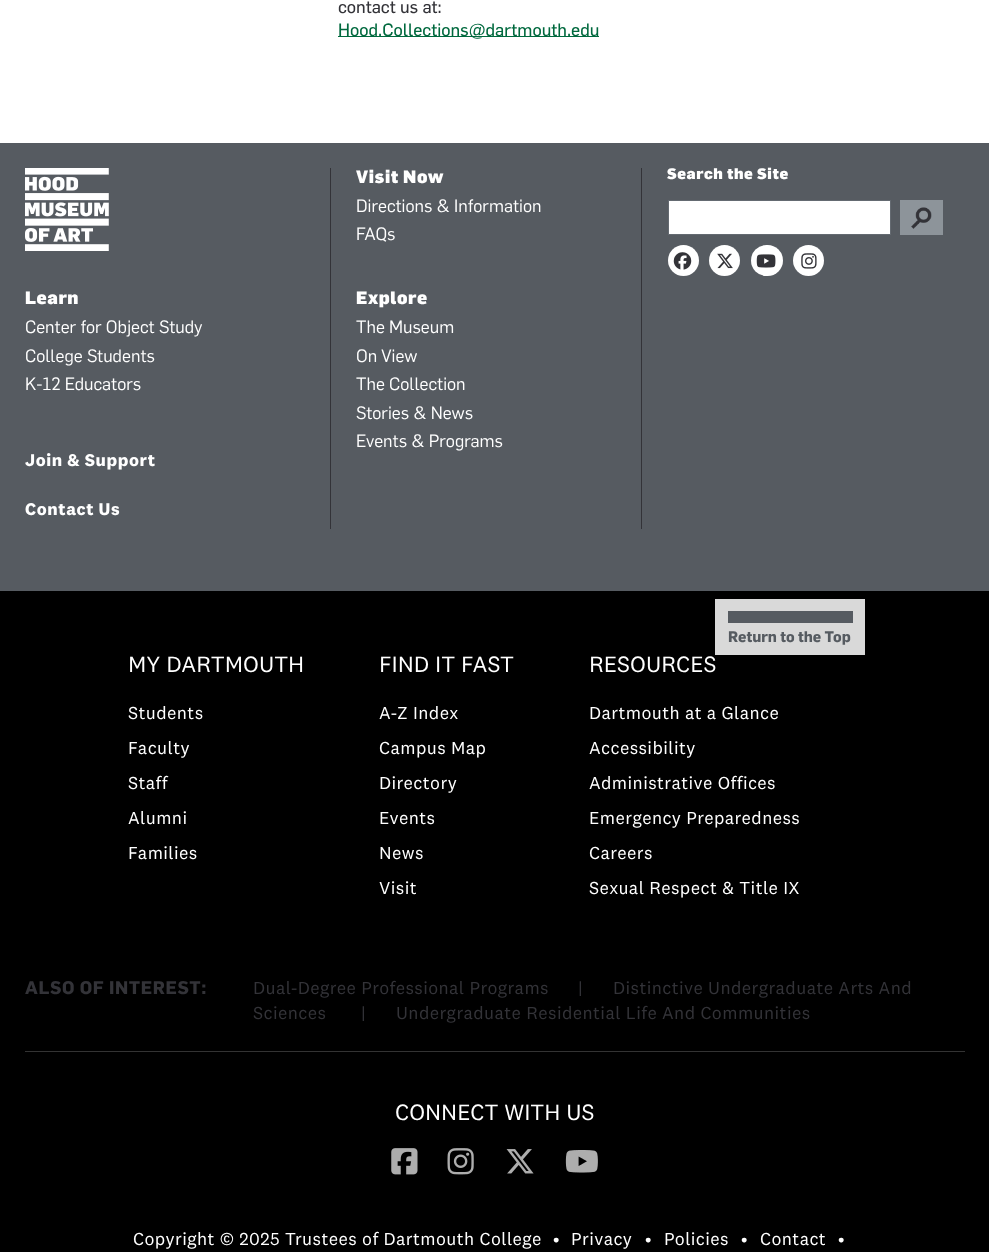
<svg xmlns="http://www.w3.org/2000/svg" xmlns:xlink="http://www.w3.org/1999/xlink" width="989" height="1252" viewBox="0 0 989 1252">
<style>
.cls-1{font:17.5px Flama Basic;fill:#333338}
.cls-2{font:17.5px Flama Basic;fill:#00693e}
.cls-3{font:900 17.5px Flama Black;letter-spacing:0.6px;fill:#ffffff}
.cls-4{font:17.5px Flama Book;fill:#ffffff}
.cls-5{font:900 15px Flama Black;letter-spacing:0.6px;fill:#ffffff}
.cls-6{font:bold 17.5px 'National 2';letter-spacing:0.6px;fill:#ffffff}
.cls-7{font:bold 15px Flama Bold;fill:#565b61}
.cls-8{font:23px 'National 2';fill:#ffffff}
.cls-9{font:18px 'National 2';letter-spacing:0.4px;fill:#ffffff}
.cls-10{font:bold 18px Flama Bold;letter-spacing:0.6px;fill:#333338}
.cls-11{font:18px 'National 2';letter-spacing:0.4px;fill:#333338}
.cls-12{font:17.5px 'National 2';fill:#333338}
.cls-13{font:18px 'National 2';fill:#ffffff}
</style>
<rect width="100%" height="100%" fill="#ffffff"/>
<rect fill="#00693e" x="338" y="36" width="261" height="1"/>
<rect fill="#565b61" x="0" y="143" width="989" height="448"/>
<image xlink:href="image0.png" x="25" y="168" width="84" height="83"/>
<rect fill="#333338" x="641" y="168" width="1" height="361"/>
<rect fill="#333338" x="330" y="168" width="1" height="361"/>
<rect fill="#ffffff" stroke="#646a71" x="668.5" y="200.5" width="222" height="34"/>
<rect fill="#8d949a" x="900" y="200" width="43" height="35"/>
<image xlink:href="image1.png" x="911" y="207" width="21" height="22"/>
<circle fill="#ffffff" cx="683.5" cy="260.5" r="15.5"/>
<image xlink:href="image2.png" x="673" y="252" width="19" height="18"/>
<circle fill="#ffffff" cx="724.5" cy="260.5" r="15.5"/>
<image xlink:href="image3.png" x="717" y="253" width="16" height="16"/>
<rect fill="#ffffff" x="751" y="245" width="32" height="31" rx="15.5"/>
<image xlink:href="image4.png" x="756" y="254" width="20" height="14"/>
<circle fill="#ffffff" cx="808.5" cy="260.5" r="15.5"/>
<image xlink:href="image5.png" x="801" y="253" width="16" height="16"/>
<rect fill="#000000" x="0" y="591" width="989" height="661"/>
<rect fill="#d9d9d9" x="715" y="599" width="150" height="56"/>
<rect fill="#565b61" x="728" y="611" width="125" height="12"/>
<rect fill="#333333" x="25" y="1051" width="940" height="1"/>
<image xlink:href="image6.png" x="391" y="1148" width="27" height="27"/>
<image xlink:href="image7.png" x="447" y="1148" width="27" height="27"/>
<image xlink:href="image8.png" x="506" y="1149" width="28" height="25"/>
<image xlink:href="image9.png" x="565" y="1150" width="33" height="23"/>
<text class="cls-1" x="338" y="13">contact us at:</text>
<text class="cls-2" x="338" y="36">Hood.Collections@dartmouth.edu</text>
<text class="cls-3" x="356" y="183">Visit Now</text>
<text class="cls-4"><tspan x="356" y="212">Directions &amp; Information</tspan><tspan x="356" y="240">FAQs</tspan></text>
<text class="cls-5" x="667" y="179">Search the Site</text>
<text class="cls-3" x="25" y="304">Learn</text>
<text class="cls-4"><tspan x="25" y="333">Center for Object Study</tspan><tspan x="25" y="362">College Students</tspan><tspan x="25" y="390">K-12 Educators</tspan></text>
<text class="cls-6" x="25" y="466">Join &amp; Support</text>
<text class="cls-6" x="25" y="515">Contact Us</text>
<text class="cls-3" x="356" y="304">Explore</text>
<text class="cls-4"><tspan x="356" y="333">The Museum</tspan><tspan x="356" y="362">On View</tspan><tspan x="356" y="390">The Collection</tspan><tspan x="356" y="419">Stories &amp; News</tspan><tspan x="356" y="447">Events &amp; Programs</tspan></text>
<text class="cls-7" x="728" y="642">Return to the Top</text>
<text class="cls-8" x="128" y="672">MY DARTMOUTH</text>
<text class="cls-9"><tspan x="128" y="719">Students</tspan><tspan x="128" y="754">Faculty</tspan><tspan x="128" y="789">Staff</tspan><tspan x="128" y="824">Alumni</tspan><tspan x="128" y="859">Families</tspan></text>
<text class="cls-8" x="379" y="672">FIND IT FAST</text>
<text class="cls-9"><tspan x="379" y="719">A-Z Index</tspan><tspan x="379" y="754">Campus Map</tspan><tspan x="379" y="789">Directory</tspan><tspan x="379" y="824">Events</tspan><tspan x="379" y="859">News</tspan><tspan x="379" y="894">Visit</tspan></text>
<text class="cls-8" x="589" y="672">RESOURCES</text>
<text class="cls-9"><tspan x="589" y="719">Dartmouth at a Glance</tspan><tspan x="589" y="754">Accessibility</tspan><tspan x="589" y="789">Administrative Offices</tspan><tspan x="589" y="824">Emergency Preparedness</tspan><tspan x="589" y="859">Careers</tspan><tspan x="589" y="894">Sexual Respect &amp; Title IX</tspan></text>
<text class="cls-10" x="25" y="994">ALSO OF INTEREST:</text>
<text class="cls-11" x="253" y="994">Dual-Degree Professional Programs</text>
<text class="cls-12" x="578" y="994">|</text>
<text class="cls-11" x="613" y="994">Distinctive Undergraduate Arts And</text>
<text class="cls-11" x="253" y="1019">Sciences</text>
<text class="cls-12" x="361" y="1019">|</text>
<text class="cls-11" x="396" y="1019">Undergraduate Residential Life And Communities</text>
<text class="cls-8" x="395" y="1120">CONNECT WITH US</text>
<text class="cls-9" x="133" y="1245">Copyright © 2025 Trustees of Dartmouth College</text>
<text class="cls-13" x="553" y="1245">•</text>
<text class="cls-9" x="571" y="1245">Privacy</text>
<text class="cls-13" x="645" y="1245">•</text>
<text class="cls-9" x="664" y="1245">Policies</text>
<text class="cls-13" x="741" y="1245">•</text>
<text class="cls-9" x="760" y="1245">Contact</text>
<text class="cls-13" x="838" y="1245">•</text>
</svg>
